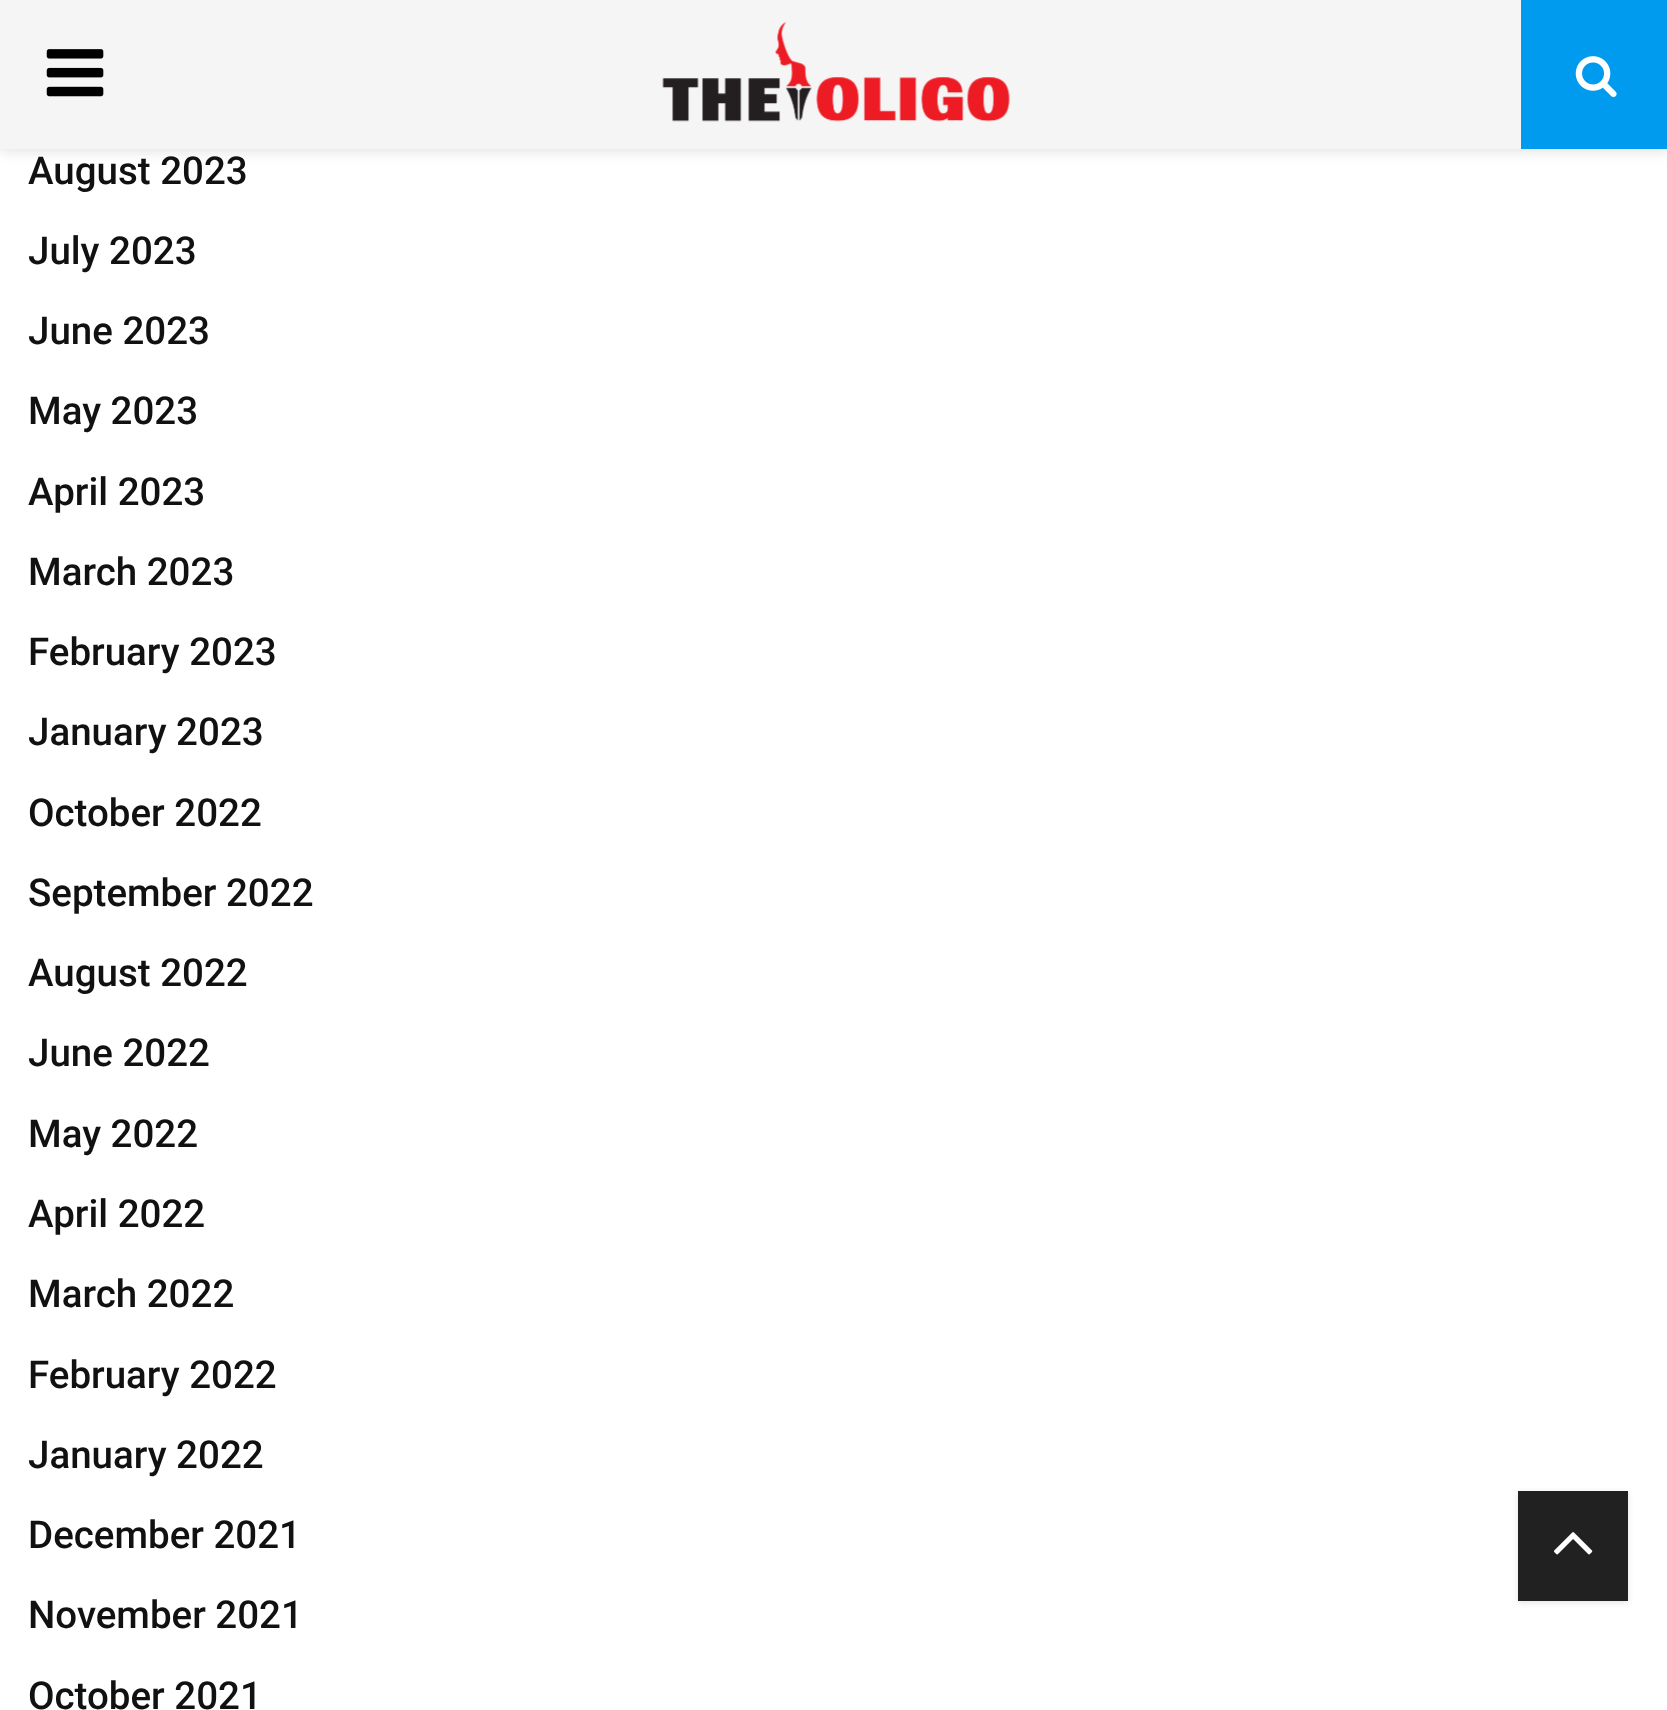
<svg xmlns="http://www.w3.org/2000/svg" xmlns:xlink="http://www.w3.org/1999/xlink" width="1667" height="1710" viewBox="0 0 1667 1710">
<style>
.cls-1{font:500 38.5px Roboto;fill:#111111}
</style>
<rect width="100%" height="100%" fill="#ffffff"/>
<rect fill="#bebebe" fill-opacity="0.46" filter="blur(7px)" x="0" y="3" width="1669" height="148"/>
<rect fill="#f5f5f5" x="0" y="0" width="1521" height="149"/>
<image xlink:href="image0.png" x="46" y="49" width="58" height="48"/>
<image xlink:href="image1.png" x="662" y="22" width="348" height="100"/>
<rect fill="#009bef" x="1521" y="0" width="146" height="149"/>
<image xlink:href="image2.png" x="1575" y="56" width="42" height="41"/>
<rect fill="#000000" fill-opacity="0.1" filter="blur(3px)" x="1518" y="1493" width="110" height="110"/>
<rect fill="#212121" x="1518" y="1491" width="110" height="110"/>
<image xlink:href="image3.png" x="1554" y="1532" width="39" height="23"/>
<text class="cls-1" x="28" y="184">August 2023</text>
<text class="cls-1" x="28" y="264">July 2023</text>
<text class="cls-1" x="28" y="344">June 2023</text>
<text class="cls-1" x="28" y="424">May 2023</text>
<text class="cls-1" x="28" y="505">April 2023</text>
<text class="cls-1" x="28" y="585">March 2023</text>
<text class="cls-1" x="28" y="665">February 2023</text>
<text class="cls-1" x="28" y="745">January 2023</text>
<text class="cls-1" x="28" y="826">October 2022</text>
<text class="cls-1" x="28" y="906">September 2022</text>
<text class="cls-1" x="28" y="986">August 2022</text>
<text class="cls-1" x="28" y="1066">June 2022</text>
<text class="cls-1" x="28" y="1147">May 2022</text>
<text class="cls-1" x="28" y="1227">April 2022</text>
<text class="cls-1" x="28" y="1307">March 2022</text>
<text class="cls-1" x="28" y="1388">February 2022</text>
<text class="cls-1" x="28" y="1468">January 2022</text>
<text class="cls-1" x="28" y="1548">December 2021</text>
<text class="cls-1" x="28" y="1628">November 2021</text>
<text class="cls-1" x="28" y="1709">October 2021</text>
</svg>
